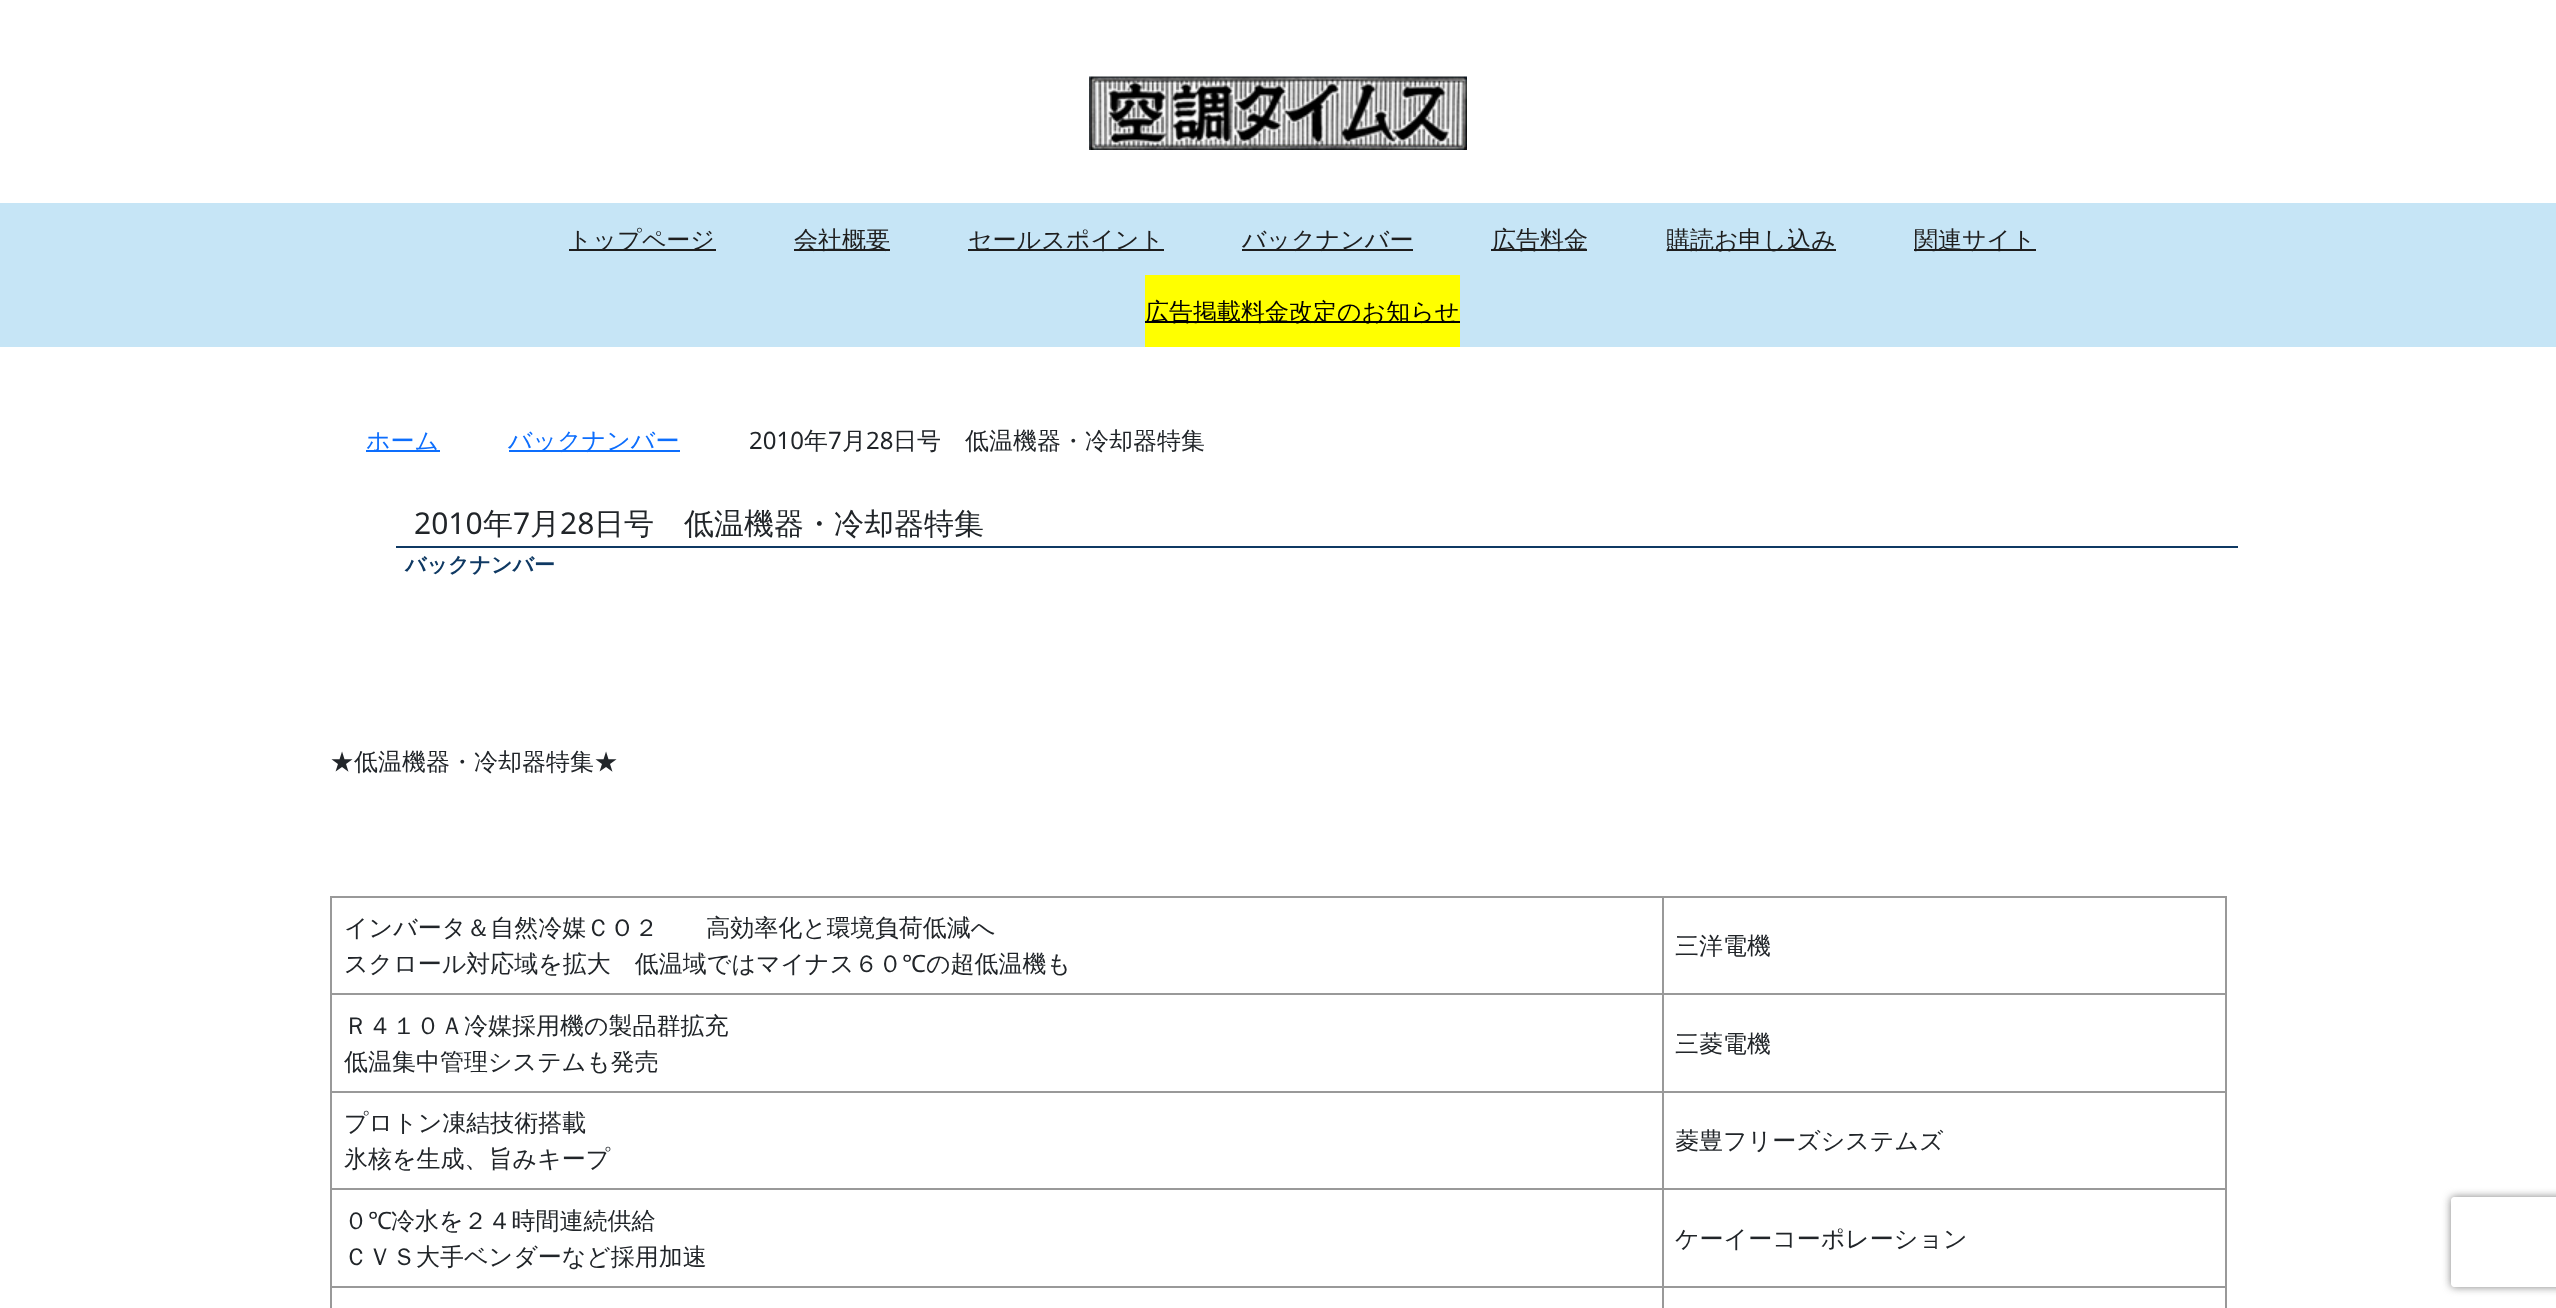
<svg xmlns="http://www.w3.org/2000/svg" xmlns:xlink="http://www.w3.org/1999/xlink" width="2556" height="1308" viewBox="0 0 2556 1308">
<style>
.cls-1{font:500 24px WenQuanYi Zen Hei;fill:#1e1e1e}
.cls-2{font:500 24px WenQuanYi Zen Hei;fill:#000000}
.cls-3{font:500 24px WenQuanYi Zen Hei;fill:#0d6efd}
.cls-4{font:24px Noto Sans;fill:#212529}
.cls-5{font:500 24px WenQuanYi Zen Hei;fill:#212529}
.cls-6{font:30px Noto Sans;fill:#212529}
.cls-7{font:500 30px WenQuanYi Zen Hei;fill:#212529}
.cls-8{font:bold 21px WenQuanYi Zen Hei;fill:#0f3963}
</style>
<defs>
<clipPath id="clip1"><path d="M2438 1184H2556V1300H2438ZM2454 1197H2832C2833.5 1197 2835 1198.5 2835 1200V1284C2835 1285.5 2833.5 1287 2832 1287H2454C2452.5 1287 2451 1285.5 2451 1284V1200C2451 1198.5 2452.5 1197 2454 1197Z" clip-rule="evenodd"/></clipPath>
</defs>
<rect width="100%" height="100%" fill="#ffffff"/>
<image xlink:href="image0.png" x="1089" y="76" width="378" height="74"/>
<rect fill="#c6e5f6" x="0" y="203" width="2556" height="144"/>
<rect fill="#1e1e1e" x="569" y="249" width="147" height="2"/>
<rect fill="#1e1e1e" x="794" y="249" width="96" height="2"/>
<rect fill="#1e1e1e" x="968" y="249" width="196" height="2"/>
<rect fill="#1e1e1e" x="1242" y="249" width="171" height="2"/>
<rect fill="#1e1e1e" x="1491" y="249" width="96" height="2"/>
<rect fill="#1e1e1e" x="1667" y="249" width="169" height="2"/>
<rect fill="#1e1e1e" x="1914" y="249" width="122" height="2"/>
<rect fill="#ffff00" x="1145" y="275" width="315" height="72"/>
<rect fill="#000000" x="1145" y="321" width="315" height="2"/>
<rect fill="#0d6efd" x="366" y="450" width="74" height="2"/>
<rect fill="#0d6efd" x="509" y="450" width="171" height="2"/>
<rect fill="#0f3963" x="396" y="546" width="1842" height="2"/>
<rect fill="#999999" x="1662" y="896" width="564" height="2"/>
<rect fill="#999999" x="1662" y="993" width="564" height="2"/>
<rect fill="#999999" x="1662" y="1091" width="564" height="2"/>
<rect fill="#999999" x="1662" y="1188" width="564" height="2"/>
<rect fill="#999999" x="1662" y="1286" width="564" height="2"/>
<rect fill="#999999" x="1662" y="1286" width="2" height="22"/>
<rect fill="#999999" x="330" y="1286" width="1334" height="2"/>
<rect fill="#999999" x="1662" y="1188" width="2" height="99"/>
<rect fill="#999999" x="330" y="1188" width="1334" height="2"/>
<rect fill="#999999" x="1662" y="1091" width="2" height="99"/>
<rect fill="#999999" x="330" y="1091" width="1334" height="2"/>
<rect fill="#999999" x="1662" y="993" width="2" height="99"/>
<rect fill="#999999" x="330" y="993" width="1334" height="2"/>
<rect fill="#999999" x="1662" y="896" width="2" height="99"/>
<rect fill="#999999" x="330" y="896" width="1334" height="2"/>
<rect fill="#999999" x="330" y="1286" width="2" height="22"/>
<rect fill="#999999" x="330" y="1188" width="2" height="99"/>
<rect fill="#999999" x="330" y="1091" width="2" height="99"/>
<rect fill="#999999" x="330" y="993" width="2" height="99"/>
<rect fill="#999999" x="330" y="896" width="2" height="99"/>
<rect fill="#999999" x="2225" y="1286" width="2" height="22"/>
<rect fill="#999999" x="2225" y="1188" width="2" height="99"/>
<rect fill="#999999" x="2225" y="1091" width="2" height="99"/>
<rect fill="#999999" x="2225" y="993" width="2" height="99"/>
<rect fill="#999999" x="2225" y="896" width="2" height="99"/>
<g clip-path="url(#clip1)">
<rect fill="#808080" filter="blur(4px)" x="2451" y="1197" width="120" height="90" rx="3"/>
</g>
<text class="cls-1" x="568" y="248">トップページ</text>
<text class="cls-1" x="794" y="248">会社概要</text>
<text class="cls-1" x="968" y="248">セールスポイント</text>
<text class="cls-1" x="1242" y="248">バックナンバー</text>
<text class="cls-1" x="1492" y="248">広告料金</text>
<text class="cls-1" x="1666" y="248">購読お申し込み</text>
<text class="cls-1" x="1914" y="248">関連サイト</text>
<text class="cls-2" x="1145" y="320">広告掲載料金改定のお知らせ</text>
<text class="cls-3" x="366" y="449">ホーム</text>
<text class="cls-3" x="508" y="449">バックナンバー</text>
<text class="cls-4" x="749" y="449">2010</text>
<text class="cls-5" x="804" y="449">年</text>
<text class="cls-4" x="828" y="449">7</text>
<text class="cls-5" x="842" y="449">月</text>
<text class="cls-4" x="866" y="449">28</text>
<text class="cls-5" x="893" y="449">日号　低温機器・冷却器特集</text>
<text class="cls-6" x="414" y="534">2010</text>
<text class="cls-7" x="483" y="534">年</text>
<text class="cls-6" x="513" y="534">7</text>
<text class="cls-7" x="530" y="534">月</text>
<text class="cls-6" x="560" y="534">28</text>
<text class="cls-7" x="594" y="534">日号　低温機器・冷却器特集</text>
<text class="cls-8" x="405" y="572">バックナンバー</text>
<text class="cls-5" x="330" y="770">★低温機器・冷却器特集★</text>
<text class="cls-5"><tspan x="344" y="936">インバータ＆自然冷媒ＣＯ２　　高効率化と環境負荷低減へ</tspan><tspan x="344" y="972">スクロール対応域を拡大　低温域ではマイナス６０</tspan></text>
<text class="cls-4" x="902" y="972">℃</text>
<text class="cls-5" x="926" y="972">の超低温機も</text>
<text class="cls-5" x="1675" y="954">三洋電機</text>
<text class="cls-5"><tspan x="344" y="1034">Ｒ４１０Ａ冷媒採用機の製品群拡充</tspan><tspan x="344" y="1070">低温集中管理システムも発売</tspan></text>
<text class="cls-5" x="1675" y="1052">三菱電機</text>
<text class="cls-5"><tspan x="344" y="1131">プロトン凍結技術搭載</tspan><tspan x="344" y="1167">氷核を生成、旨みキープ</tspan></text>
<text class="cls-5" x="1675" y="1149">菱豊フリーズシステムズ</text>
<text class="cls-5" x="344" y="1229">０</text>
<text class="cls-4" x="368" y="1229">℃</text>
<text class="cls-5" x="391" y="1229">冷水を２４時間連続供給</text>
<text class="cls-5" x="344" y="1265">ＣＶＳ大手ベンダーなど採用加速</text>
<text class="cls-5" x="1675" y="1247">ケーイーコーポレーション</text>
</svg>
